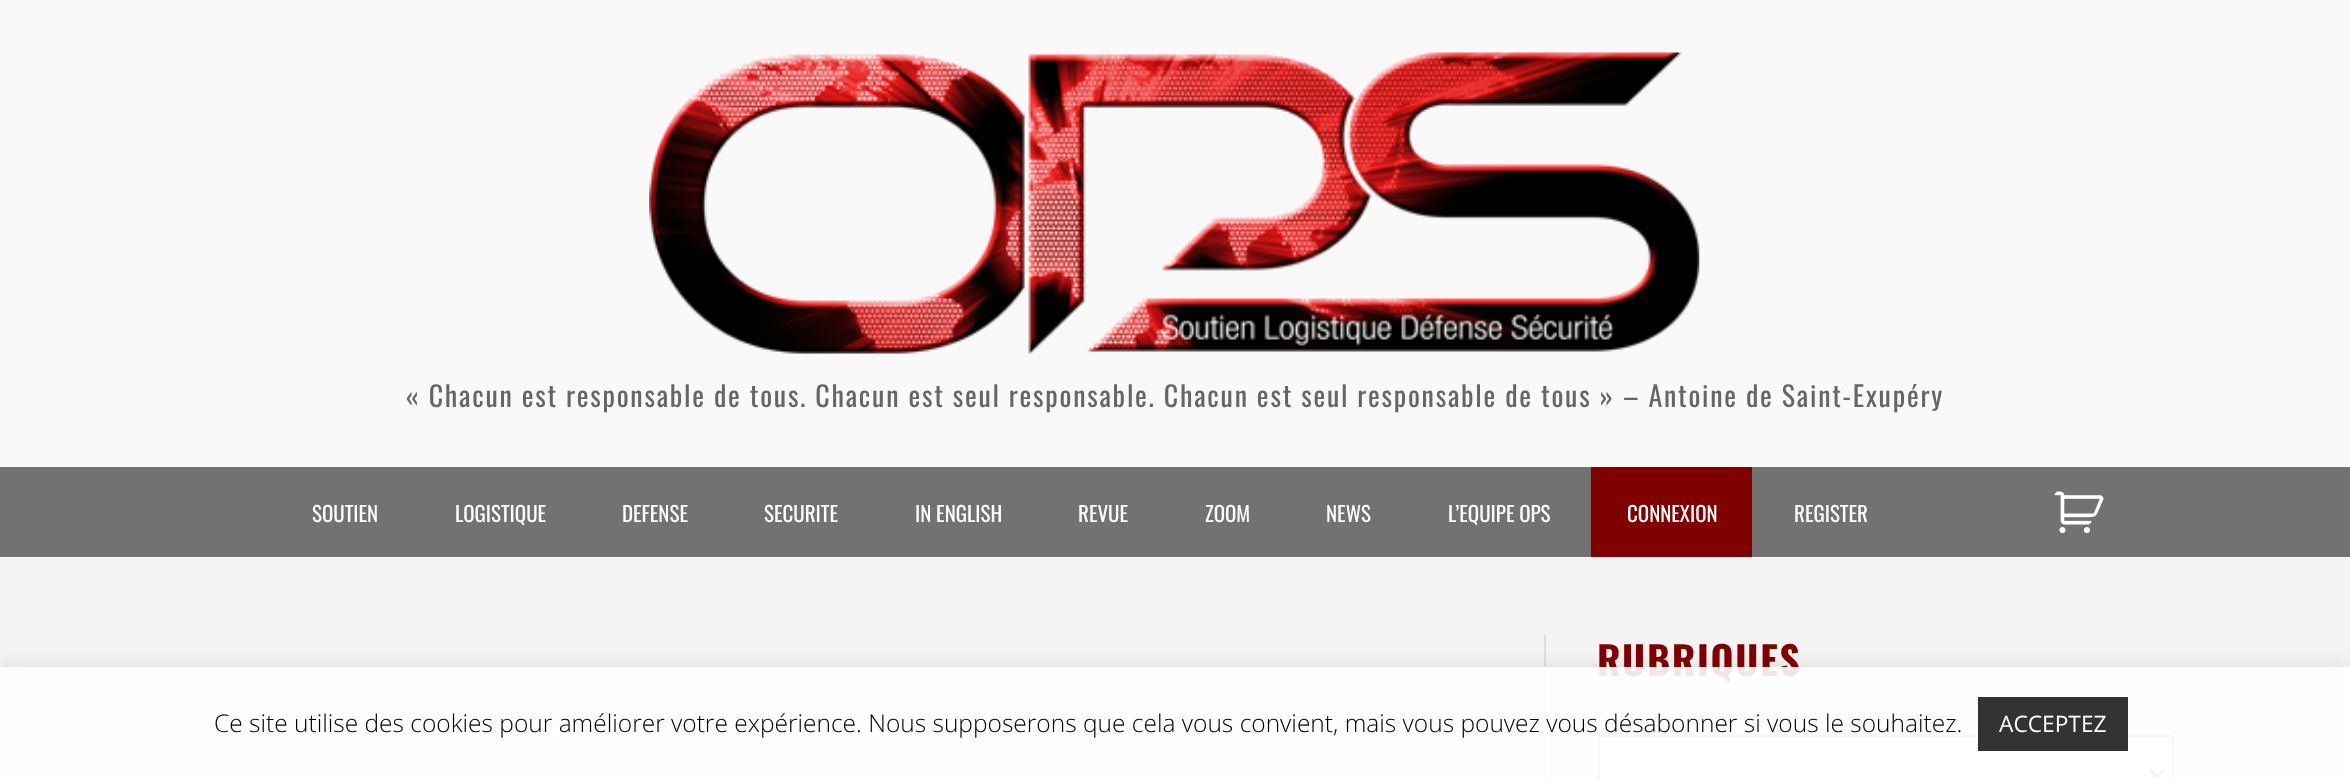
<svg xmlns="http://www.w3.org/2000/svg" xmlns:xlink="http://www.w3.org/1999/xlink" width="2350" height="780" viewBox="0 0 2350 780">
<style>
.cls-1{font:28px Oswald;letter-spacing:1.75px;fill:#666666}
.cls-2{font:21px Oswald;fill:#ffffff}
.cls-3{font:bold 39.25px Oswald;letter-spacing:1.75px;fill:#800000}
.cls-4{font:300 24.5px Open Sans;fill:#000000}
.cls-5{font:22.75px Open Sans;fill:#ffffff}
</style>
<defs>
<clipPath id="clip1"><rect x="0" y="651" width="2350" height="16"/></clipPath>
</defs>
<rect width="100%" height="100%" fill="#f4f4f4"/>
<rect fill="#f9f9f9" x="0" y="0" width="2350" height="467"/>
<image xlink:href="image0.png" x="649" y="52" width="1051" height="302"/>
<rect fill="#727272" x="0" y="467" width="2350" height="90"/>
<rect fill="#800000" x="1591" y="467" width="161" height="90"/>
<image xlink:href="image1.png" x="2054" y="491" width="50" height="43"/>
<rect fill="#dddddd" x="1544" y="635" width="2" height="145"/>
<rect fill="#ffffff" stroke="#b0b0b0" stroke-width="2" x="1599" y="736" width="574" height="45"/>
<path fill="none" stroke="#999999" stroke-width="3.5" d="M2150 769.5L2157 776.5L2164 769.5"/>
<g clip-path="url(#clip1)">
<rect fill="#acabab" fill-opacity="0.3" filter="blur(9px)" x="0" y="665" width="2350" height="114"/>
</g>
<text class="cls-1" x="406" y="407">« Chacun est responsable de tous. Chacun est seul responsable. Chacun est seul responsable de tous » – Antoine de Saint-Exupéry</text>
<text class="cls-2" x="312" y="522">SOUTIEN</text>
<text class="cls-2" x="455" y="522">LOGISTIQUE</text>
<text class="cls-2" x="622" y="522">DEFENSE</text>
<text class="cls-2" x="764" y="522">SECURITE</text>
<text class="cls-2" x="915" y="522">IN ENGLISH</text>
<text class="cls-2" x="1078" y="522">REVUE</text>
<text class="cls-2" x="1205" y="522">ZOOM</text>
<text class="cls-2" x="1326" y="522">NEWS</text>
<text class="cls-2" x="1448" y="522">L’EQUIPE OPS</text>
<text class="cls-2" x="1627" y="522">CONNEXION</text>
<text class="cls-2" x="1794" y="522">REGISTER</text>
<text class="cls-3" x="1597" y="676">RUBRIQUES</text>
<rect fill="#ffffff" fill-opacity="0.9" x="0" y="667" width="2350" height="113"/>
<text class="cls-4" x="214" y="732">Ce site utilise des cookies pour améliorer votre expérience. Nous supposerons que cela vous convient, mais vous pouvez vous désabonner si vous le souhaitez.</text>
<rect fill="#333333" x="1978" y="697" width="150" height="54"/>
<text class="cls-5" x="1999" y="732">ACCEPTEZ</text>
</svg>
